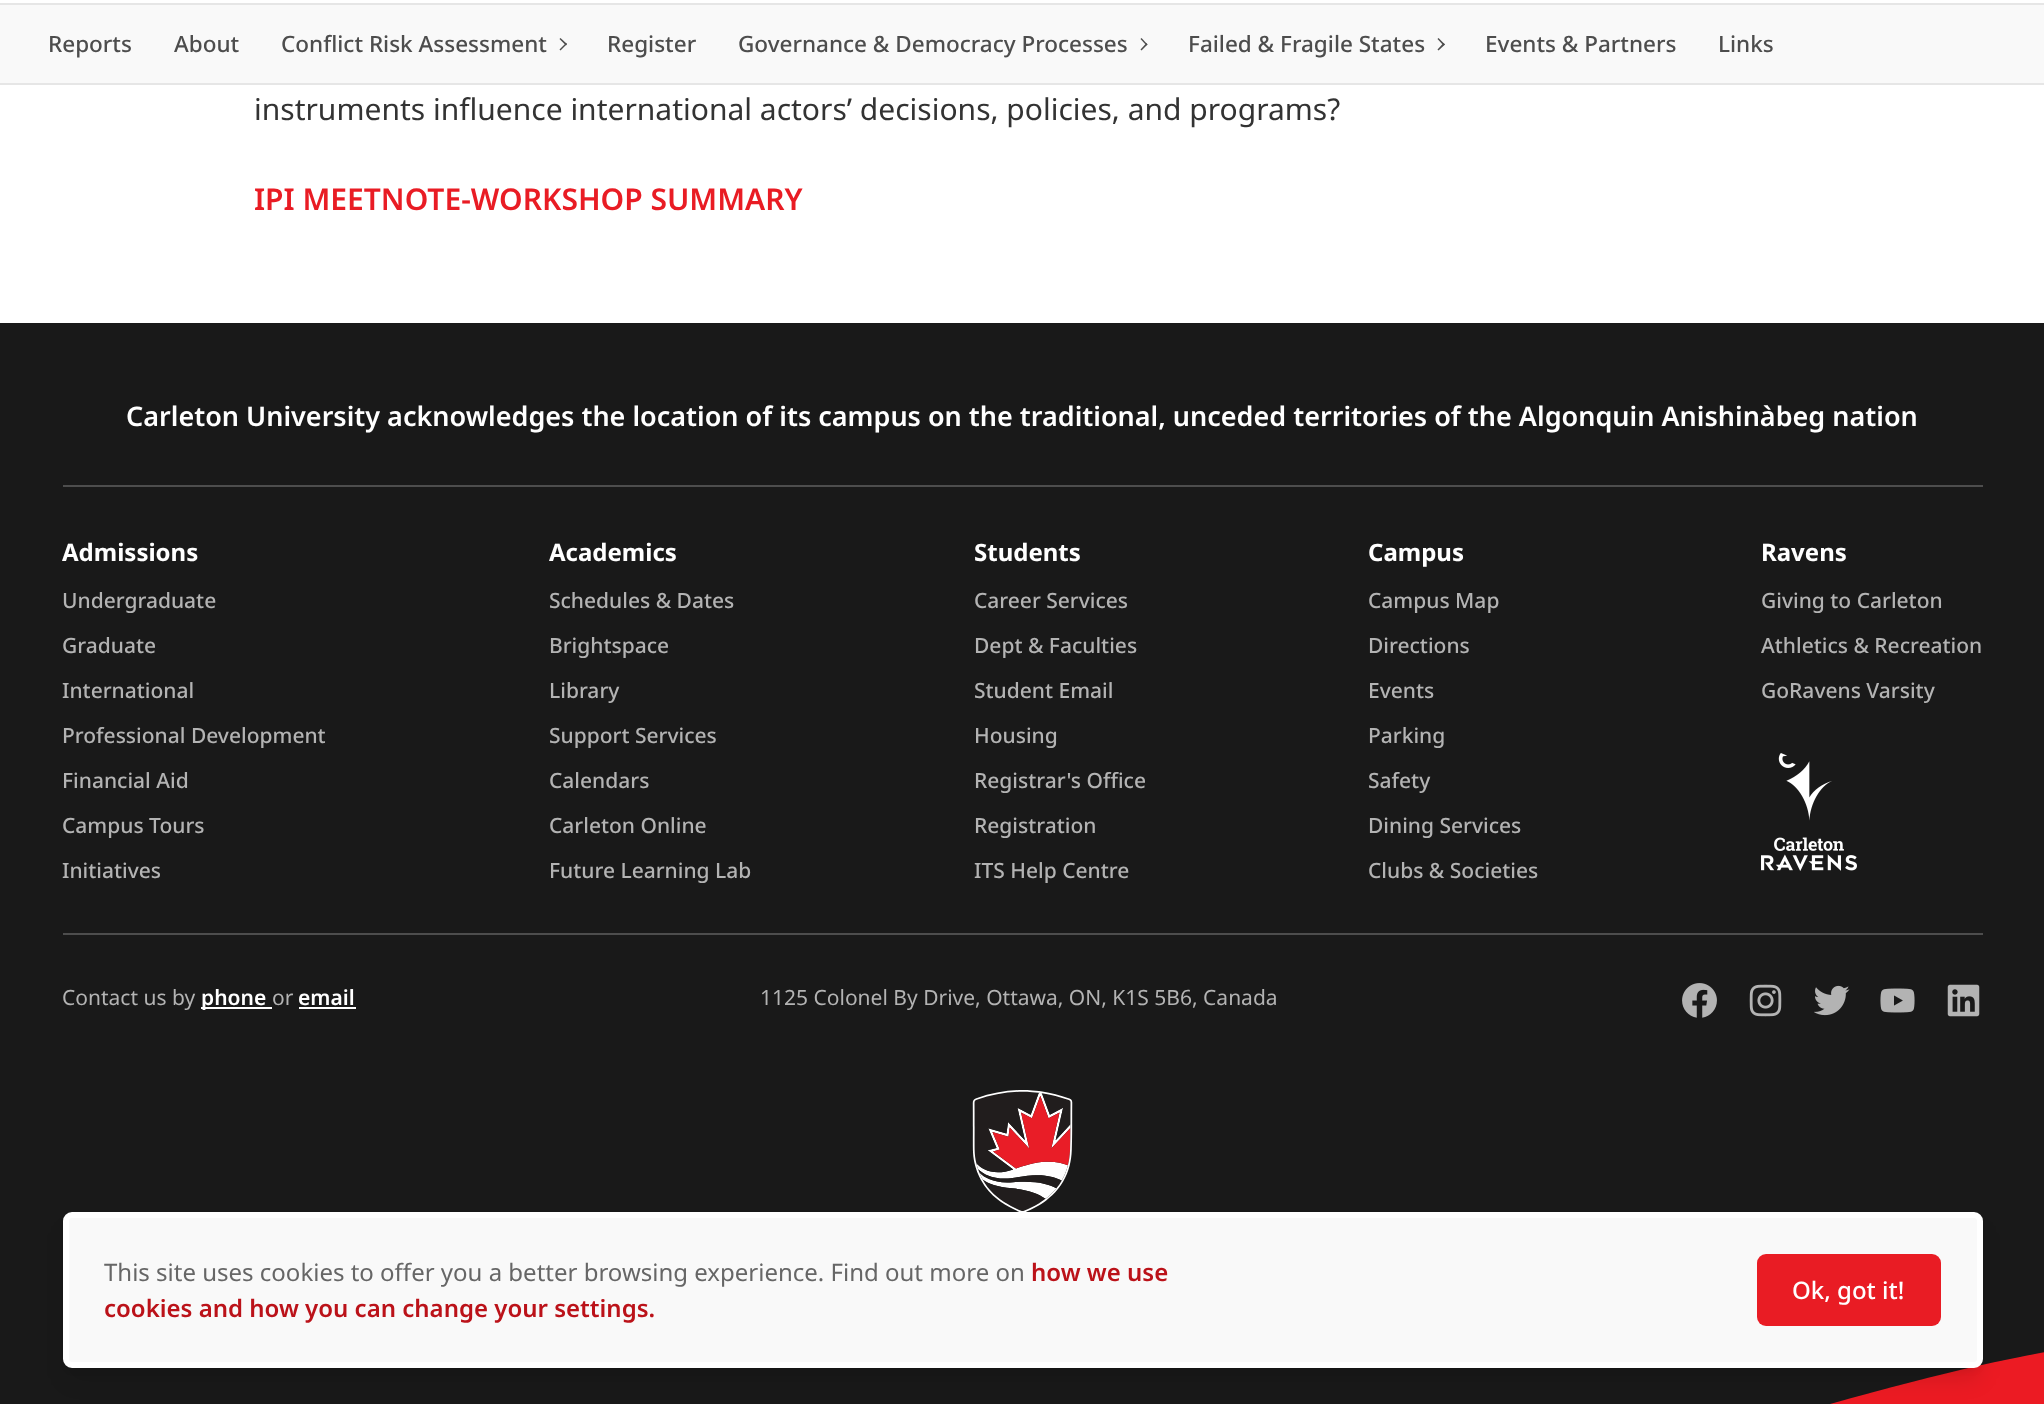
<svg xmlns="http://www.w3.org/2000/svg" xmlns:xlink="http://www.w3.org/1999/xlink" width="2044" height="1404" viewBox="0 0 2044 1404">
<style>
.cls-1{font:500 22.5px Noto Sans;fill:#4d4d4d}
.cls-2{font:30px Noto Sans;fill:#333333}
.cls-3{font:600 30px Noto Sans;fill:#e91c24}
.cls-4{font:600 27px Noto Sans;fill:#ffffff}
.cls-5{font:bold 24px Noto Sans;fill:#ffffff}
.cls-6{font:500 21px Noto Sans;fill:#b3b3b3}
.cls-7{font:21px Noto Sans;fill:#b3b3b3}
.cls-8{font:600 21px Noto Sans;fill:#ffffff}
.cls-9{font:24px Noto Sans;fill:#666666}
.cls-10{font:600 24px Noto Sans;fill:#bb1219}
.cls-11{font:500 24px Noto Sans;fill:#ffffff}
</style>
<rect width="100%" height="100%" fill="#ffffff"/>
<rect fill="#e6e6e6" x="0" y="83" width="2044" height="2"/>
<rect fill="#f9f9f9" x="0" y="5" width="2044" height="78"/>
<rect fill="#e6e6e6" x="0" y="3" width="2044" height="2"/>
<path fill="#4d4d4d" d="M567 44L560.5 50.5L559.5 49.5L566 43Z"/>
<path fill="#4d4d4d" d="M567 44L566 45.5L559.5 39L560.5 38Z"/>
<path fill="#4d4d4d" d="M1147.5 44.5L1141.5 50.5L1140.5 49.5L1146.5 43Z"/>
<path fill="#4d4d4d" d="M1147.5 44.5L1146.5 45.5L1140.5 39L1141.5 38Z"/>
<path fill="#4d4d4d" d="M1445 44.5L1438.5 50.5L1437.5 49.5L1443.5 43Z"/>
<path fill="#4d4d4d" d="M1445 44.5L1443.5 45.5L1437.5 39L1438.5 38Z"/>
<rect fill="#191919" x="0" y="323" width="2044" height="1081"/>
<image xlink:href="image0.png" x="1830" y="1352" width="214" height="52"/>
<rect fill="#4d4d4d" x="63" y="485" width="1920" height="2"/>
<rect fill="#4d4d4d" x="63" y="933" width="1920" height="2"/>
<image xlink:href="image1.png" x="1761" y="753" width="96" height="118"/>
<rect fill="#ffffff" x="201" y="1007" width="71" height="2"/>
<rect fill="#ffffff" x="299" y="1007" width="57" height="2"/>
<image xlink:href="image2.png" x="1682" y="983" width="35" height="35"/>
<image xlink:href="image3.png" x="1749" y="984" width="33" height="33"/>
<image xlink:href="image4.png" x="1814" y="985" width="36" height="31"/>
<image xlink:href="image5.png" x="1880" y="988" width="35" height="25"/>
<image xlink:href="image6.png" x="1947" y="984" width="33" height="33"/>
<image xlink:href="image7.png" x="972" y="1090" width="101" height="122"/>
<rect fill="#000000" fill-opacity="0.1" filter="blur(4.5px)" x="69" y="1224" width="1908" height="144" rx="3"/>
<rect fill="#000000" fill-opacity="0.1" filter="blur(11px)" x="68" y="1232" width="1911" height="147" rx="5"/>
<rect fill="#f9f9f9" stroke="#ffffff" stroke-width="6" x="66" y="1215" width="1914" height="150" rx="6"/>
<rect fill="#e91c24" x="1757" y="1254" width="184" height="72" rx="9"/>
<text class="cls-1" x="48" y="52">Reports</text>
<text class="cls-1" x="174" y="52">About</text>
<text class="cls-1" x="281" y="52">Conflict Risk Assessment</text>
<text class="cls-1" x="607" y="52">Register</text>
<text class="cls-1" x="738" y="52">Governance &amp; Democracy Processes</text>
<text class="cls-1" x="1188" y="52">Failed &amp; Fragile States</text>
<text class="cls-1" x="1485" y="52">Events &amp; Partners</text>
<text class="cls-1" x="1718" y="52">Links</text>
<text class="cls-2" x="254" y="120">instruments influence international actors’ decisions, policies, and programs?</text>
<text class="cls-3" x="254" y="210">IPI MEETNOTE-WORKSHOP SUMMARY</text>
<text class="cls-4" x="126" y="426">Carleton University acknowledges the location of its campus on the traditional, unceded territories of the Algonquin Anishinàbeg nation</text>
<text class="cls-5" x="62" y="561">Admissions</text>
<text class="cls-6" x="62" y="608">Undergraduate</text>
<text class="cls-6" x="62" y="653">Graduate</text>
<text class="cls-6" x="62" y="698">International</text>
<text class="cls-6" x="62" y="743">Professional Development</text>
<text class="cls-6" x="62" y="788">Financial Aid</text>
<text class="cls-6" x="62" y="833">Campus Tours</text>
<text class="cls-6" x="62" y="878">Initiatives</text>
<text class="cls-5" x="549" y="561">Academics</text>
<text class="cls-6" x="549" y="608">Schedules &amp; Dates</text>
<text class="cls-6" x="549" y="653">Brightspace</text>
<text class="cls-6" x="549" y="698">Library</text>
<text class="cls-6" x="549" y="743">Support Services</text>
<text class="cls-6" x="549" y="788">Calendars</text>
<text class="cls-6" x="549" y="833">Carleton Online</text>
<text class="cls-6" x="549" y="878">Future Learning Lab</text>
<text class="cls-5" x="974" y="561">Students</text>
<text class="cls-6" x="974" y="608">Career Services</text>
<text class="cls-6" x="974" y="653">Dept &amp; Faculties</text>
<text class="cls-6" x="974" y="698">Student Email</text>
<text class="cls-6" x="974" y="743">Housing</text>
<text class="cls-6" x="974" y="788">Registrar's Office</text>
<text class="cls-6" x="974" y="833">Registration</text>
<text class="cls-6" x="974" y="878">ITS Help Centre</text>
<text class="cls-5" x="1368" y="561">Campus</text>
<text class="cls-6" x="1368" y="608">Campus Map</text>
<text class="cls-6" x="1368" y="653">Directions</text>
<text class="cls-6" x="1368" y="698">Events</text>
<text class="cls-6" x="1368" y="743">Parking</text>
<text class="cls-6" x="1368" y="788">Safety</text>
<text class="cls-6" x="1368" y="833">Dining Services</text>
<text class="cls-6" x="1368" y="878">Clubs &amp; Societies</text>
<text class="cls-5" x="1761" y="561">Ravens</text>
<text class="cls-6" x="1761" y="608">Giving to Carleton</text>
<text class="cls-6" x="1761" y="653">Athletics &amp; Recreation</text>
<text class="cls-6" x="1761" y="698">GoRavens Varsity</text>
<text class="cls-7" x="62" y="1005">Contact us by</text>
<text class="cls-8" x="201" y="1005">phone</text>
<text class="cls-7" x="272" y="1005">or</text>
<text class="cls-8" x="298" y="1005">email</text>
<text class="cls-7" x="760" y="1005">1125 Colonel By Drive, Ottawa, ON, K1S 5B6, Canada</text>
<text class="cls-9" x="104" y="1281">This site uses cookies to offer you a better browsing experience. Find out more on</text>
<text class="cls-10" x="1031" y="1281">how we use</text>
<text class="cls-10" x="104" y="1317">cookies and how you can change your settings.</text>
<text class="cls-11" x="1792" y="1299">Ok, got it!</text>
</svg>
